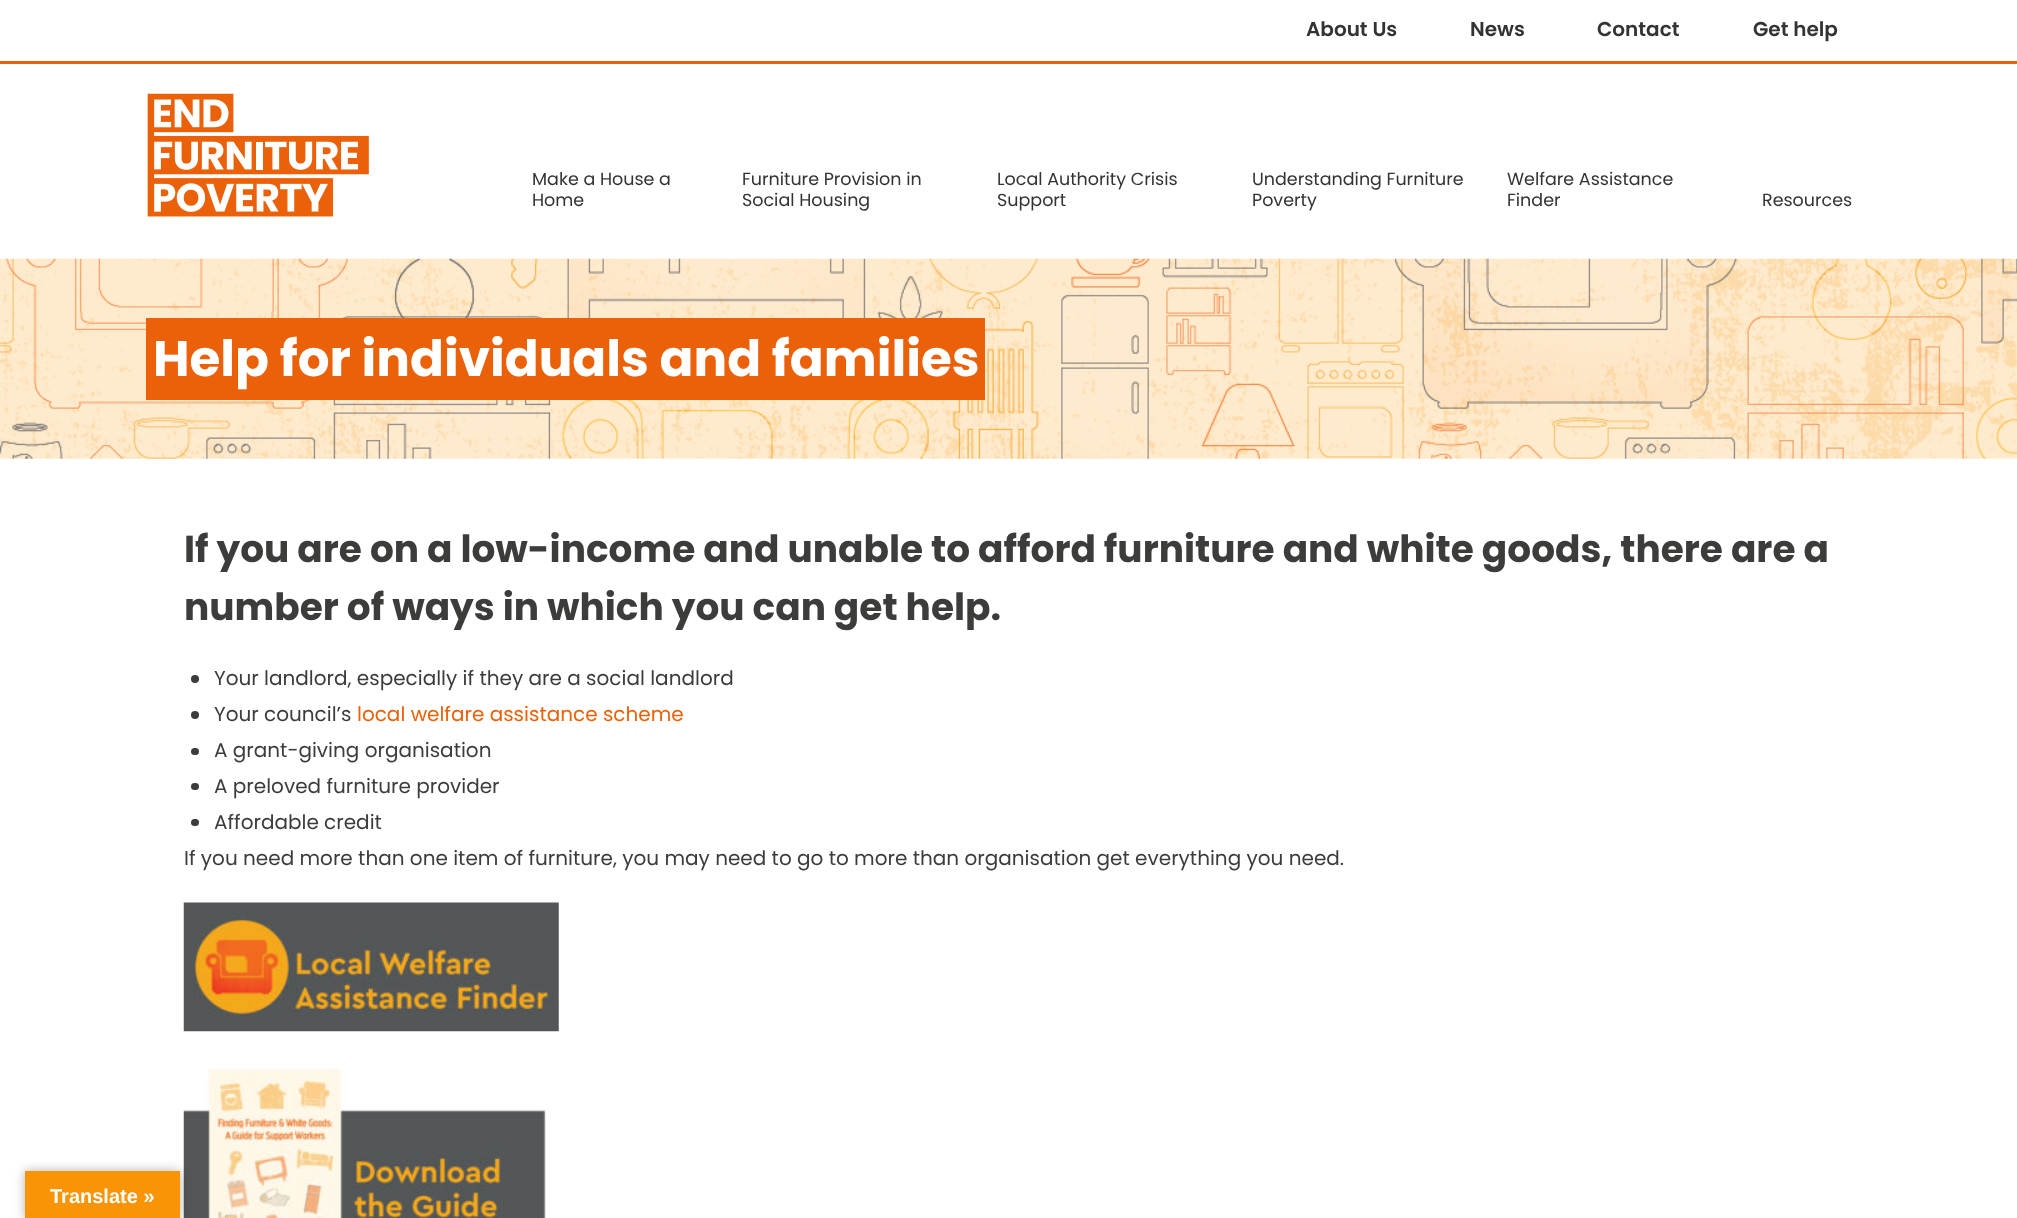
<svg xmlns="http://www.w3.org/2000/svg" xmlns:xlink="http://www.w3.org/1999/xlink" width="2017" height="1218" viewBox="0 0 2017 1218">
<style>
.cls-1{font:600 20px Poppins;fill:#333333}
.cls-2{font:17.5px Poppins;fill:#333333}
.cls-3{font:bold 50px Poppins;fill:#ffffff}
.cls-4{font:bold 37.5px Poppins;fill:#3c3c3b}
.cls-5{font:20px Poppins;fill:#3c3c3b}
.cls-6{font:20px Poppins;fill:#eb6109}
.cls-7{font:bold 20px Liberation Sans;fill:#ffffff}
</style>
<rect width="100%" height="100%" fill="#ffffff"/>
<rect fill="#eb6109" x="0" y="61" width="2017" height="3"/>
<image xlink:href="image0.png" x="147" y="93" width="222" height="124"/>
<image xlink:href="image1.png" x="0" y="258" width="2017" height="201"/>
<rect fill="#eb6109" x="146" y="318" width="839" height="82"/>
<circle fill="#3c3c3b" cx="195" cy="679" r="4"/>
<circle fill="#3c3c3b" cx="195" cy="715" r="4"/>
<rect fill="#3c3c3b" x="191" y="748" width="8" height="7" rx="3.5"/>
<rect fill="#3c3c3b" x="191" y="783" width="8" height="7" rx="3.5"/>
<rect fill="#3c3c3b" x="191" y="819" width="8" height="7" rx="3.5"/>
<image xlink:href="image2.png" x="183" y="902" width="376" height="130"/>
<image xlink:href="image3.png" x="183" y="1068" width="368" height="150"/>
<rect fill="#000000" fill-opacity="0.3" filter="blur(5.5px)" x="25" y="1171" width="155" height="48"/>
<rect fill="#f89406" x="25" y="1171" width="155" height="47"/>
<text class="cls-1" x="1306" y="36">About Us</text>
<text class="cls-1" x="1470" y="36">News</text>
<text class="cls-1" x="1597" y="36">Contact</text>
<text class="cls-1" x="1753" y="36">Get help</text>
<text class="cls-2"><tspan x="532" y="185">Make a House a</tspan><tspan x="532" y="206">Home</tspan></text>
<text class="cls-2"><tspan x="742" y="185">Furniture Provision in</tspan><tspan x="742" y="206">Social Housing</tspan></text>
<text class="cls-2"><tspan x="997" y="185">Local Authority Crisis</tspan><tspan x="997" y="206">Support</tspan></text>
<text class="cls-2"><tspan x="1252" y="185">Understanding Furniture</tspan><tspan x="1252" y="206">Poverty</tspan></text>
<text class="cls-2"><tspan x="1507" y="185">Welfare Assistance</tspan><tspan x="1507" y="206">Finder</tspan></text>
<text class="cls-2" x="1762" y="206">Resources</text>
<text class="cls-3" x="153" y="376">Help for individuals and families</text>
<text class="cls-4"><tspan x="184" y="562">If you are on a low-income and unable to afford furniture and white goods, there are a</tspan><tspan x="184" y="620">number of ways in which you can get help.</tspan></text>
<text class="cls-5"><tspan x="214" y="685">Your landlord, especially if they are a social landlord</tspan><tspan x="214" y="721">Your council’s</tspan></text>
<text class="cls-6" x="357" y="721">local welfare assistance scheme</text>
<text class="cls-5"><tspan x="214" y="757">A grant-giving organisation</tspan><tspan x="214" y="793">A preloved furniture provider</tspan><tspan x="214" y="829">Affordable credit</tspan></text>
<text class="cls-5" x="184" y="865">If you need more than one item of furniture, you may need to go to more than organisation get everything you need.</text>
<text class="cls-7" x="50" y="1203">Translate »</text>
</svg>
